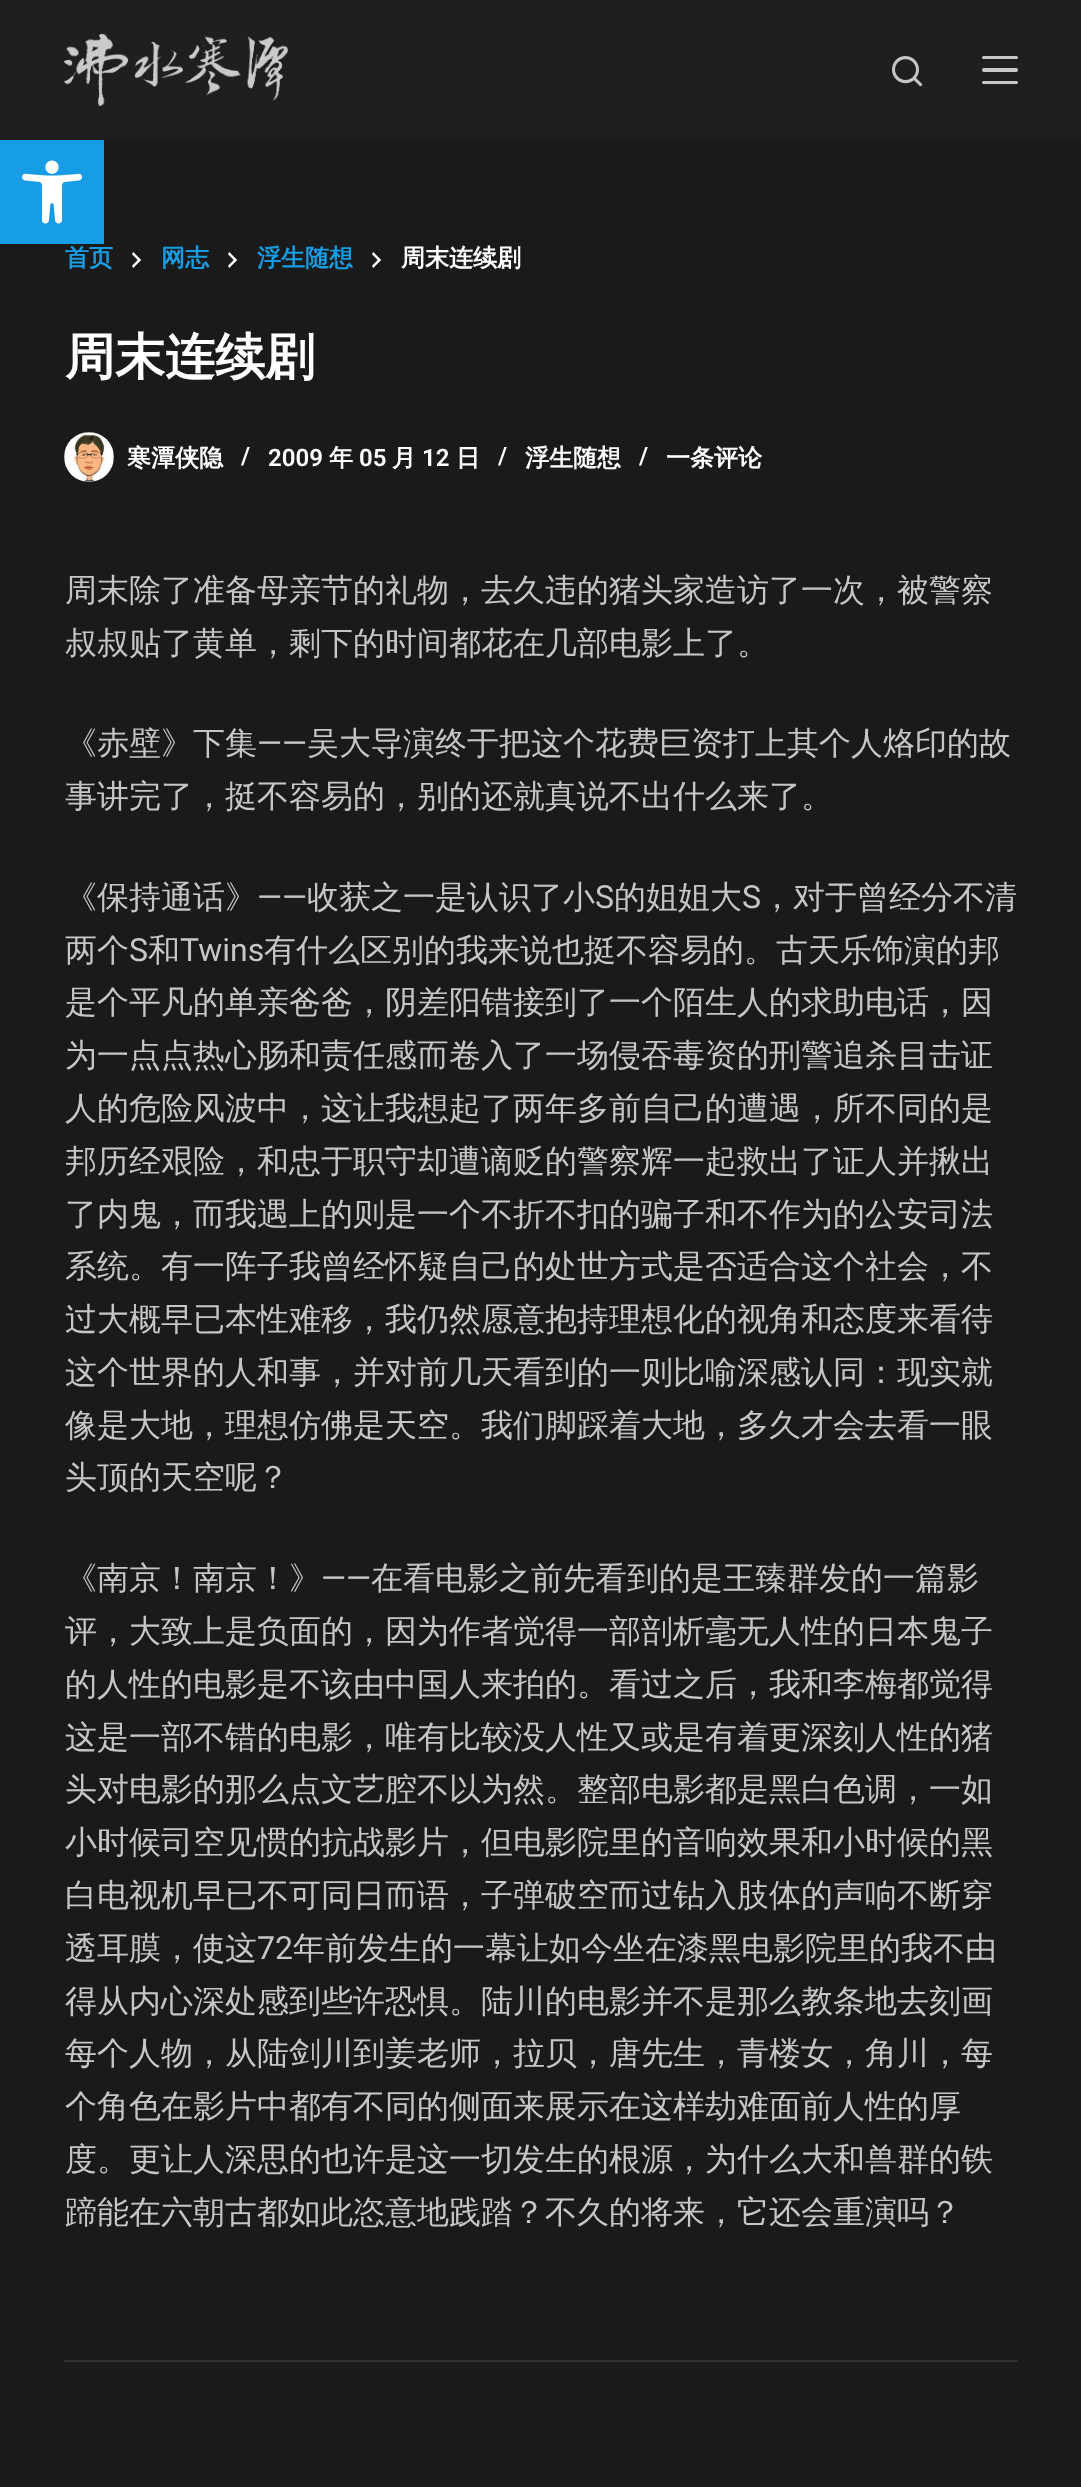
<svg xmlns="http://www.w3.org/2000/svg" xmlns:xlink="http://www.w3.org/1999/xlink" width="1081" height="2487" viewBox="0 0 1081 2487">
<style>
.cls-1{font:bold 24px WenQuanYi Zen Hei;fill:#179ce6}
.cls-2{font:bold 24px WenQuanYi Zen Hei;fill:#ffffff}
.cls-3{font:bold 50px WenQuanYi Zen Hei;fill:#ffffff}
.cls-4{font:600 24px Roboto;fill:#ffffff}
.cls-5{font:500 32px WenQuanYi Zen Hei;fill:#c6c6c6}
.cls-6{font:32px Roboto;fill:#c6c6c6}
</style>
<rect width="100%" height="100%" fill="#1a1a1a"/>
<rect fill="#179ce6" x="0" y="140" width="104" height="104"/>
<image xlink:href="image0.png" x="22" y="160" width="61" height="64"/>
<rect fill="#1f1f1f" x="0" y="0" width="1081" height="140"/>
<image xlink:href="image1.png" x="64" y="34" width="224" height="72"/>
<image xlink:href="image2.png" x="892" y="56" width="30" height="30"/>
<rect fill="#c6c6c6" x="982" y="56" width="36" height="3" rx="1.5"/>
<rect fill="#c6c6c6" x="982" y="68" width="36" height="4" rx="2"/>
<rect fill="#c6c6c6" x="982" y="81" width="36" height="3" rx="1.5"/>
<image xlink:href="image3.png" x="132" y="252" width="10" height="16"/>
<image xlink:href="image3.png" x="228" y="252" width="10" height="16"/>
<image xlink:href="image3.png" x="372" y="252" width="10" height="16"/>
<image xlink:href="image4.png" x="64" y="432" width="50" height="50"/>
<rect fill="#303030" x="64" y="2360" width="954" height="2"/>
<text class="cls-1" x="65" y="266">首页</text>
<text class="cls-1" x="161" y="266">网志</text>
<text class="cls-1" x="257" y="266">浮生随想</text>
<text class="cls-2" x="401" y="266">周末连续剧</text>
<text class="cls-3" x="65" y="374">周末连续剧</text>
<text class="cls-2" x="127" y="466">寒潭侠隐</text>
<text class="cls-4" x="241" y="464">/</text>
<text class="cls-4" x="268" y="466">2009</text>
<text class="cls-2" x="329" y="466">年</text>
<text class="cls-4" x="359" y="466">05</text>
<text class="cls-2" x="392" y="466">月</text>
<text class="cls-4" x="422" y="466">12</text>
<text class="cls-2" x="456" y="466">日</text>
<text class="cls-4" x="498" y="464">/</text>
<text class="cls-2" x="525" y="466">浮生随想</text>
<text class="cls-4" x="639" y="464">/</text>
<text class="cls-2" x="666" y="466">一条评论</text>
<text class="cls-5"><tspan x="65" y="601">周末除了准备母亲节的礼物，去久违的猪头家造访了一次，被警察</tspan><tspan x="65" y="654">叔叔贴了黄单，剩下的时间都花在几部电影上了。</tspan></text>
<text class="cls-5" x="65" y="754">《赤壁》下集</text>
<text class="cls-6" x="257" y="754">——</text>
<text class="cls-5" x="307" y="754">吴大导演终于把这个花费巨资打上其个人烙印的故</text>
<text class="cls-5" x="65" y="807">事讲完了，挺不容易的，别的还就真说不出什么来了。</text>
<text class="cls-5" x="65" y="908">《保持通话》</text>
<text class="cls-6" x="257" y="908">——</text>
<text class="cls-5" x="307" y="908">收获之一是认识了小</text>
<text class="cls-6" x="595" y="908">S</text>
<text class="cls-5" x="614" y="908">的姐姐大</text>
<text class="cls-6" x="742" y="908">S</text>
<text class="cls-5" x="761" y="908">，对于曾经分不清</text>
<text class="cls-5" x="65" y="961">两个</text>
<text class="cls-6" x="129" y="961">S</text>
<text class="cls-5" x="148" y="961">和</text>
<text class="cls-6" x="180" y="961">Twins</text>
<text class="cls-5" x="264" y="961">有什么区别的我来说也挺不容易的。古天乐饰演的邦</text>
<text class="cls-5"><tspan x="65" y="1013">是个平凡的单亲爸爸，阴差阳错接到了一个陌生人的求助电话，因</tspan><tspan x="65" y="1066">为一点点热心肠和责任感而卷入了一场侵吞毒资的刑警追杀目击证</tspan><tspan x="65" y="1119">人的危险风波中，这让我想起了两年多前自己的遭遇，所不同的是</tspan><tspan x="65" y="1172">邦历经艰险，和忠于职守却遭谪贬的警察辉一起救出了证人并揪出</tspan><tspan x="65" y="1225">了内鬼，而我遇上的则是一个不折不扣的骗子和不作为的公安司法</tspan><tspan x="65" y="1277">系统。有一阵子我曾经怀疑自己的处世方式是否适合这个社会，不</tspan><tspan x="65" y="1330">过大概早已本性难移，我仍然愿意抱持理想化的视角和态度来看待</tspan><tspan x="65" y="1383">这个世界的人和事，并对前几天看到的一则比喻深感认同：现实就</tspan><tspan x="65" y="1436">像是大地，理想仿佛是天空。我们脚踩着大地，多久才会去看一眼</tspan><tspan x="65" y="1488">头顶的天空呢？</tspan></text>
<text class="cls-5" x="65" y="1589">《南京！南京！》</text>
<text class="cls-6" x="321" y="1589">——</text>
<text class="cls-5" x="371" y="1589">在看电影之前先看到的是王臻群发的一篇影</text>
<text class="cls-5"><tspan x="65" y="1642">评，大致上是负面的，因为作者觉得一部剖析毫无人性的日本鬼子</tspan><tspan x="65" y="1695">的人性的电影是不该由中国人来拍的。看过之后，我和李梅都觉得</tspan><tspan x="65" y="1748">这是一部不错的电影，唯有比较没人性又或是有着更深刻人性的猪</tspan><tspan x="65" y="1800">头对电影的那么点文艺腔不以为然。整部电影都是黑白色调，一如</tspan><tspan x="65" y="1853">小时候司空见惯的抗战影片，但电影院里的音响效果和小时候的黑</tspan><tspan x="65" y="1906">白电视机早已不可同日而语，子弹破空而过钻入肢体的声响不断穿</tspan><tspan x="65" y="1959">透耳膜，使这</tspan></text>
<text class="cls-6" x="257" y="1959">72</text>
<text class="cls-5" x="293" y="1959">年前发生的一幕让如今坐在漆黑电影院里的我不由</text>
<text class="cls-5"><tspan x="65" y="2012">得从内心深处感到些许恐惧。陆川的电影并不是那么教条地去刻画</tspan><tspan x="65" y="2064">每个人物，从陆剑川到姜老师，拉贝，唐先生，青楼女，角川，每</tspan><tspan x="65" y="2117">个角色在影片中都有不同的侧面来展示在这样劫难面前人性的厚</tspan><tspan x="65" y="2170">度。更让人深思的也许是这一切发生的根源，为什么大和兽群的铁</tspan><tspan x="65" y="2223">蹄能在六朝古都如此恣意地践踏？不久的将来，它还会重演吗？</tspan></text>
</svg>
